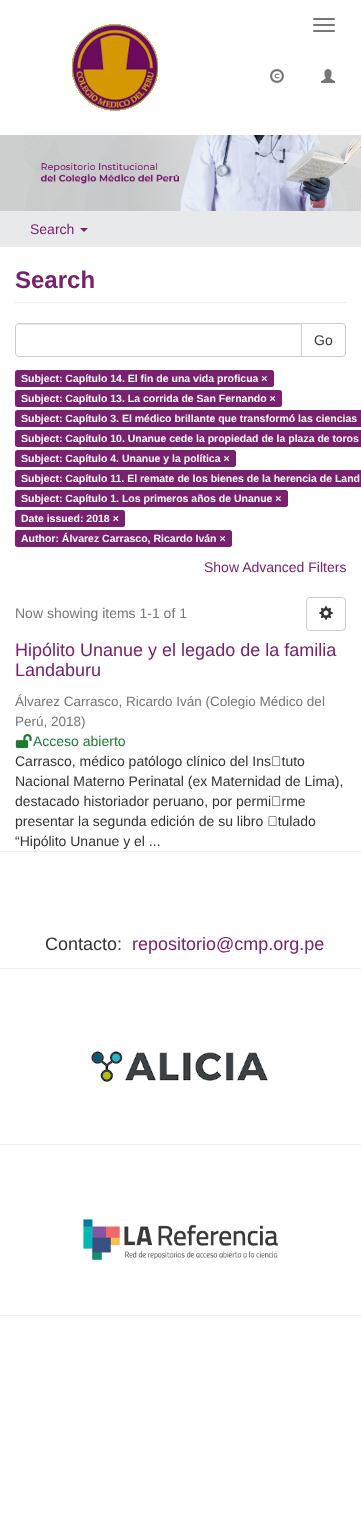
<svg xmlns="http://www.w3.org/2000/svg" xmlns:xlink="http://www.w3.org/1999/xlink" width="361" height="1525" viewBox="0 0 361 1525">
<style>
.cls-1{font:14px Liberation Sans;fill:#79206e}
.cls-2{font:bold 24px Liberation Sans;fill:#79206e}
.cls-3{font:14px Liberation Sans;fill:#333333}
.cls-4{font:bold 10.5px Liberation Sans;fill:#ffffff}
.cls-5{font:14px Liberation Sans;fill:#777777}
.cls-6{font:18px Liberation Sans;fill:#79206e}
.cls-7{font:13.5px Liberation Sans;fill:#777777}
.cls-8{font:14px Liberation Sans;fill:#1b7b34}
.cls-9{font:18px Liberation Sans;fill:#333333}
</style>
<rect width="100%" height="100%" fill="#ffffff"/>
<image xlink:href="image0.png" x="72" y="24" width="86" height="87"/>
<rect fill="#777777" x="313" y="18" width="22" height="2" rx="1"/>
<rect fill="#777777" x="313" y="24" width="22" height="2" rx="1"/>
<rect fill="#777777" x="313" y="30" width="22" height="2" rx="1"/>
<image xlink:href="image1.png" x="270" y="69" width="14" height="14"/>
<image xlink:href="image2.png" x="321" y="69" width="14" height="14"/>
<rect fill="#ced0cf" x="0" y="135" width="24" height="76"/>
<image xlink:href="image3.png" x="24" y="135" width="337" height="76"/>
<rect fill="#e7e9eb" x="0" y="211" width="361" height="36"/>
<path fill="#79206e" d="M80 228H88L84 232Z"/>
<rect fill="#eeeeee" x="15" y="302" width="331" height="1"/>
<path fill="none" stroke="#cccccc" d="M301.5 323.5H342C344 323.5 345.5 325 345.5 327V353C345.5 355 344 356.5 342 356.5H301.5Z"/>
<path fill="#ffffff" d="M19 323H302V357H19C17 357 15 355 15 353V327C15 325 17 323 19 323Z"/>
<path fill="#ececec" d="M19 325H301V324H19C17 324 16 326 16 328C16 326 17 325 19 325Z"/>
<path fill="none" stroke="#cccccc" d="M19 323.5H301.5V356.5H19C17 356.5 15.5 355 15.5 353V327C15.5 325 17 323.5 19 323.5Z"/>
<rect fill="#79206e" x="15" y="370" width="259" height="17" rx="2.5"/>
<rect fill="#79206e" x="15" y="390" width="267" height="17" rx="2.5"/>
<path fill="#79206e" d="M17.5 410H361V427H17.5C16 427 15 426 15 424.5V412.5C15 411 16 410 17.5 410Z"/>
<path fill="#79206e" d="M17.5 430H361V447H17.5C16 447 15 446 15 444.5V432.5C15 431 16 430 17.5 430Z"/>
<rect fill="#79206e" x="15" y="450" width="221" height="17" rx="2.5"/>
<path fill="#79206e" d="M17.5 470H361V487H17.5C16 487 15 486 15 484.5V472.5C15 471 16 470 17.5 470Z"/>
<rect fill="#79206e" x="15" y="490" width="273" height="17" rx="2.5"/>
<rect fill="#79206e" x="15" y="510" width="110" height="17" rx="2.5"/>
<rect fill="#79206e" x="15" y="530" width="217" height="17" rx="2.5"/>
<rect fill="none" stroke="#cccccc" x="306.5" y="597.5" width="39" height="33" rx="3.5"/>
<image xlink:href="image4.png" x="319" y="606" width="14" height="14"/>
<image xlink:href="image5.png" x="15" y="734" width="17" height="14"/>
<rect fill="#eeeeee" x="0" y="851" width="361" height="1"/>
<rect fill="#eeeeee" x="0" y="968" width="361" height="1"/>
<image xlink:href="image6.png" x="91" y="1051" width="177" height="31"/>
<rect fill="#eeeeee" x="0" y="1144" width="361" height="1"/>
<image xlink:href="image7.png" x="83" y="1219" width="195" height="41"/>
<rect fill="#eeeeee" x="0" y="1315" width="361" height="1"/>
<text class="cls-1" x="30" y="234">Search</text>
<text class="cls-2" x="15" y="288">Search</text>
<text class="cls-3" x="314" y="345">Go</text>
<text class="cls-4"><tspan x="21" y="382">Subject: Capítulo 14. El fin de una vida proficua ×</tspan><tspan x="21" y="402">Subject: Capítulo 13. La corrida de San Fernando ×</tspan><tspan x="21" y="422">Subject: Capítulo 3. El médico brillante que transformó las ciencias</tspan><tspan x="21" y="442">Subject: Capítulo 10. Unanue cede la propiedad de la plaza de toros</tspan><tspan x="21" y="462">Subject: Capítulo 4. Unanue y la política ×</tspan><tspan x="21" y="482">Subject: Capítulo 11. El remate de los bienes de la herencia de Land</tspan><tspan x="21" y="502">Subject: Capítulo 1. Los primeros años de Unanue ×</tspan><tspan x="21" y="522">Date issued: 2018 ×</tspan><tspan x="21" y="542">Author: Álvarez Carrasco, Ricardo Iván ×</tspan></text>
<text class="cls-1" x="204" y="572">Show Advanced Filters</text>
<text class="cls-5" x="15" y="618">Now showing items 1-1 of 1</text>
<text class="cls-6"><tspan x="15" y="656">Hipólito Unanue y el legado de la familia</tspan><tspan x="15" y="676">Landaburu</tspan></text>
<text class="cls-7"><tspan x="15" y="706">Álvarez Carrasco, Ricardo Iván (Colegio Médico del</tspan><tspan x="15" y="726">Perú, 2018)</tspan></text>
<text class="cls-8" x="33" y="746">Acceso abierto</text>
<text class="cls-3"><tspan x="15" y="766">Carrasco, médico patólogo clínico del Ins􀆟tuto</tspan><tspan x="15" y="786">Nacional Materno Perinatal (ex Maternidad de Lima),</tspan><tspan x="15" y="806">destacado historiador peruano, por permi􀆟rme</tspan><tspan x="15" y="826">presentar la segunda edición de su libro 􀆟tulado</tspan><tspan x="15" y="846">“Hipólito Unanue y el ...</tspan></text>
<text class="cls-9" x="45" y="950">Contacto:</text>
<text class="cls-6" x="132" y="950">repositorio@cmp.org.pe</text>
</svg>
